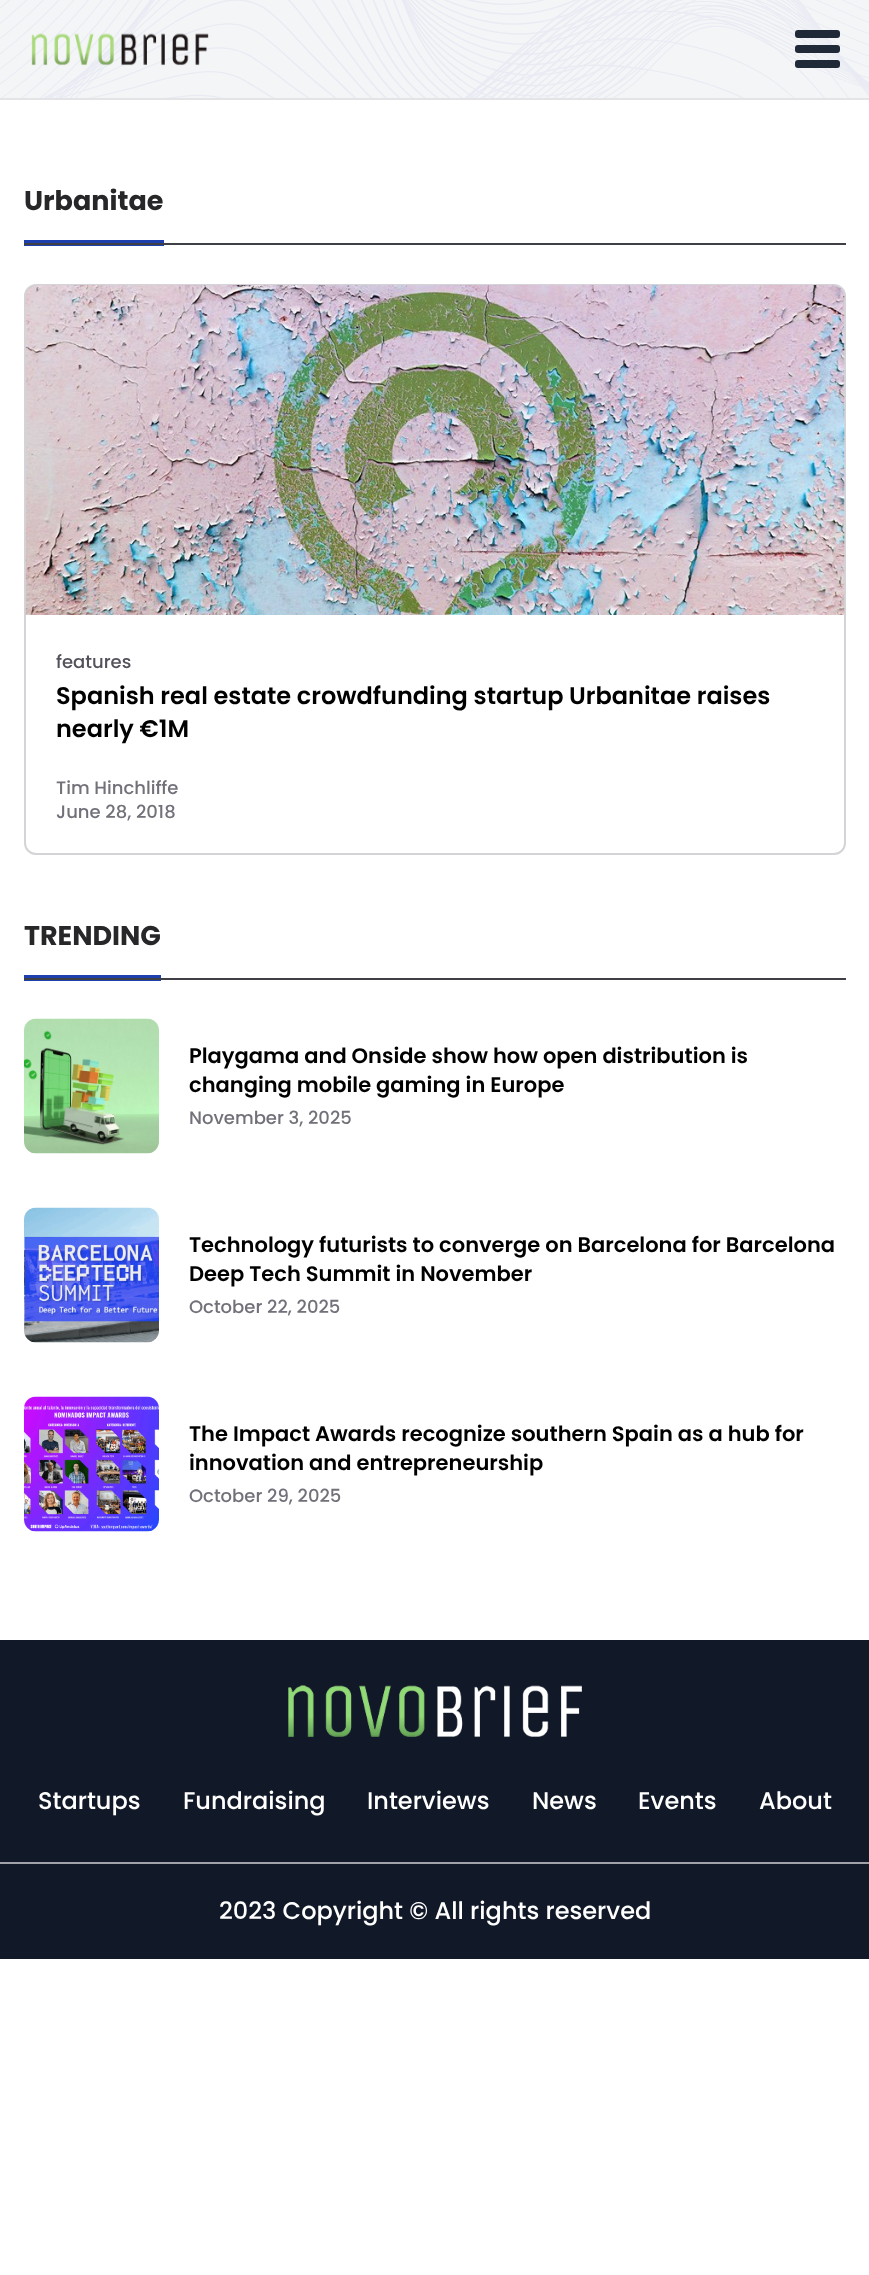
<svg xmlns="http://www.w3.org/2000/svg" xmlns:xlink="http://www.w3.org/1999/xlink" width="869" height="2275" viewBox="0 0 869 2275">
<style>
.cls-1{font:bold 27px Poppins;fill:#27272a}
.cls-2{font:500 18px Poppins;fill:#52525b}
.cls-3{font:600 24px Poppins;fill:#000000}
.cls-4{font:500 18px Poppins;fill:#71717a}
.cls-5{font:600 21px Poppins;fill:#000000}
.cls-6{font:500 24px Poppins;fill:#ffffff}
</style>
<rect width="100%" height="100%" fill="#ffffff"/>
<image xlink:href="image0.png" x="0" y="0" width="869" height="98"/>
<rect fill="#e4e4e7" x="0" y="98" width="869" height="2"/>
<image xlink:href="image1.png" x="31" y="33" width="178" height="33"/>
<rect fill="#1f2937" x="795" y="30" width="45" height="8" rx="3"/>
<rect fill="#1f2937" x="795" y="45" width="45" height="8" rx="3"/>
<rect fill="#1f2937" x="795" y="60" width="45" height="8" rx="3"/>
<rect fill="#1e40af" x="24" y="240" width="140" height="6"/>
<rect fill="#3f3f46" x="24" y="243" width="822" height="2"/>
<rect fill="none" stroke="#d4d4d8" stroke-width="2" x="25" y="285" width="820" height="569" rx="11"/>
<image xlink:href="image2.png" x="25" y="285" width="820" height="330"/>
<rect fill="#1e40af" x="24" y="975" width="137" height="6"/>
<rect fill="#3f3f46" x="24" y="978" width="822" height="2"/>
<image xlink:href="image3.png" x="24" y="1018" width="135" height="136"/>
<image xlink:href="image4.png" x="24" y="1207" width="135" height="136"/>
<image xlink:href="image5.png" x="24" y="1396" width="135" height="136"/>
<rect fill="#111827" x="0" y="1640" width="869" height="319"/>
<image xlink:href="image6.png" x="288" y="1685" width="294" height="52"/>
<rect fill="#a1a1aa" x="0" y="1862" width="869" height="2"/>
<text class="cls-1" x="24" y="210">Urbanitae</text>
<text class="cls-2" x="56" y="668">features</text>
<text class="cls-3"><tspan x="56" y="704">Spanish real estate crowdfunding startup Urbanitae raises</tspan><tspan x="56" y="737">nearly €1M</tspan></text>
<text class="cls-4"><tspan x="56" y="794">Tim Hinchliffe</tspan><tspan x="56" y="818">June 28, 2018</tspan></text>
<text class="cls-1" x="24" y="945">TRENDING</text>
<text class="cls-5"><tspan x="189" y="1063">Playgama and Onside show how open distribution is</tspan><tspan x="189" y="1092">changing mobile gaming in Europe</tspan></text>
<text class="cls-4" x="189" y="1124">November 3, 2025</text>
<text class="cls-5"><tspan x="189" y="1252">Technology futurists to converge on Barcelona for Barcelona</tspan><tspan x="189" y="1281">Deep Tech Summit in November</tspan></text>
<text class="cls-4" x="189" y="1313">October 22, 2025</text>
<text class="cls-5"><tspan x="189" y="1441">The Impact Awards recognize southern Spain as a hub for</tspan><tspan x="189" y="1470">innovation and entrepreneurship</tspan></text>
<text class="cls-4" x="189" y="1502">October 29, 2025</text>
<text class="cls-6" x="38" y="1809">Startups</text>
<text class="cls-6" x="183" y="1809">Fundraising</text>
<text class="cls-6" x="367" y="1809">Interviews</text>
<text class="cls-6" x="532" y="1809">News</text>
<text class="cls-6" x="638" y="1809">Events</text>
<text class="cls-6" x="759" y="1809">About</text>
<text class="cls-6" x="219" y="1919">2023 Copyright © All rights reserved</text>
</svg>
